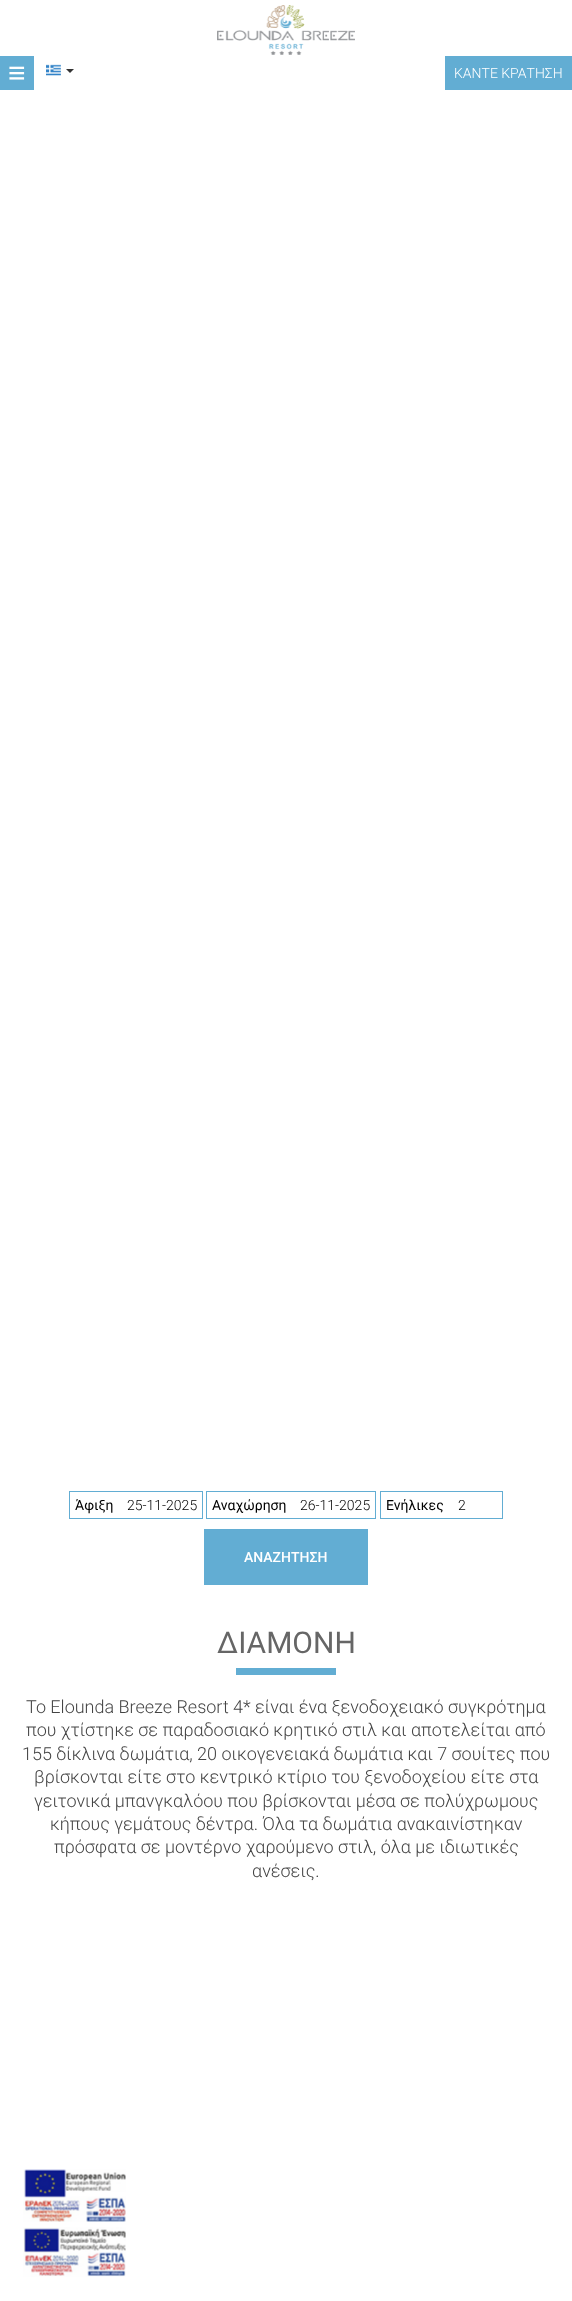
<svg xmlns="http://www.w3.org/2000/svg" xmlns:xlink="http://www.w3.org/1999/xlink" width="572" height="2301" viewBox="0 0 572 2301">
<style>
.cls-1{font:30px Liberation Sans;fill:#ffffff}
.cls-2{font:300 14px Roboto;fill:#ffffff}
.cls-3{font:14px Roboto;fill:#000000}
.cls-4{font:300 14px Roboto;fill:#000000}
.cls-5{font:500 14px Roboto;fill:#ffffff}
.cls-6{font:30px Roboto;fill:#666666}
.cls-7{font:300 18px Roboto;fill:#444444}
</style>
<rect width="100%" height="100%" fill="#ffffff"/>
<image xlink:href="image0.png" x="217" y="5" width="138" height="50"/>
<rect fill="#62add3" x="0" y="56" width="34" height="34"/>
<image xlink:href="image1.png" x="46" y="64" width="15" height="12"/>
<path fill="#333333" d="M66 69H74L70 73Z"/>
<rect fill="#62add3" x="445" y="56" width="127" height="34"/>
<rect fill="none" stroke="#62add3" x="69.5" y="1491.5" width="133" height="27"/>
<rect fill="none" stroke="#62add3" x="206.5" y="1491.5" width="169" height="27"/>
<rect fill="none" stroke="#62add3" x="380.5" y="1491.5" width="122" height="27"/>
<rect fill="#62add3" x="204" y="1529" width="164" height="56"/>
<rect fill="#62add3" x="236" y="1668" width="100" height="7"/>
<image xlink:href="image2.png" x="23" y="2169" width="103" height="53"/>
<image xlink:href="image3.png" x="23" y="2227" width="103" height="50"/>
<text class="cls-1" x="8" y="83">≡</text>
<text class="cls-2" x="454" y="78">ΚΑΝΤΕ ΚΡΑΤΗΣΗ</text>
<text class="cls-3" x="75" y="1510">Άφιξη</text>
<text class="cls-4" x="127" y="1510">25-11-2025</text>
<text class="cls-3" x="212" y="1510">Αναχώρηση</text>
<text class="cls-4" x="300" y="1510">26-11-2025</text>
<text class="cls-3" x="386" y="1510">Ενήλικες</text>
<text class="cls-4" x="458" y="1510">2</text>
<text class="cls-5" x="244" y="1562">ΑΝΑΖΗΤΗΣΗ</text>
<text class="cls-6" x="217" y="1653">ΔΙΑΜΟΝΗ</text>
<text class="cls-7"><tspan x="26" y="1713">Το Elounda Breeze Resort 4* είναι ένα ξενοδοχειακό συγκρότημα</tspan><tspan x="26" y="1736">που χτίστηκε σε παραδοσιακό κρητικό στιλ και αποτελείται από</tspan></text>
<text class="cls-7" x="22" y="1760">155 δίκλινα δωμάτια, 20 οικογενειακά δωμάτια και 7 σουίτες που</text>
<text class="cls-7"><tspan x="34" y="1783">βρίσκονται είτε στο κεντρικό κτίριο του ξενοδοχείου είτε στα</tspan><tspan x="34" y="1807">γειτονικά μπανγκαλόου που βρίσκονται μέσα σε πολύχρωμους</tspan></text>
<text class="cls-7" x="50" y="1830">κήπους γεμάτους δέντρα. Όλα τα δωμάτια ανακαινίστηκαν</text>
<text class="cls-7" x="54" y="1853">πρόσφατα σε μοντέρνο χαρούμενο στιλ, όλα με ιδιωτικές</text>
<text class="cls-7" x="252" y="1877">ανέσεις.</text>
</svg>
